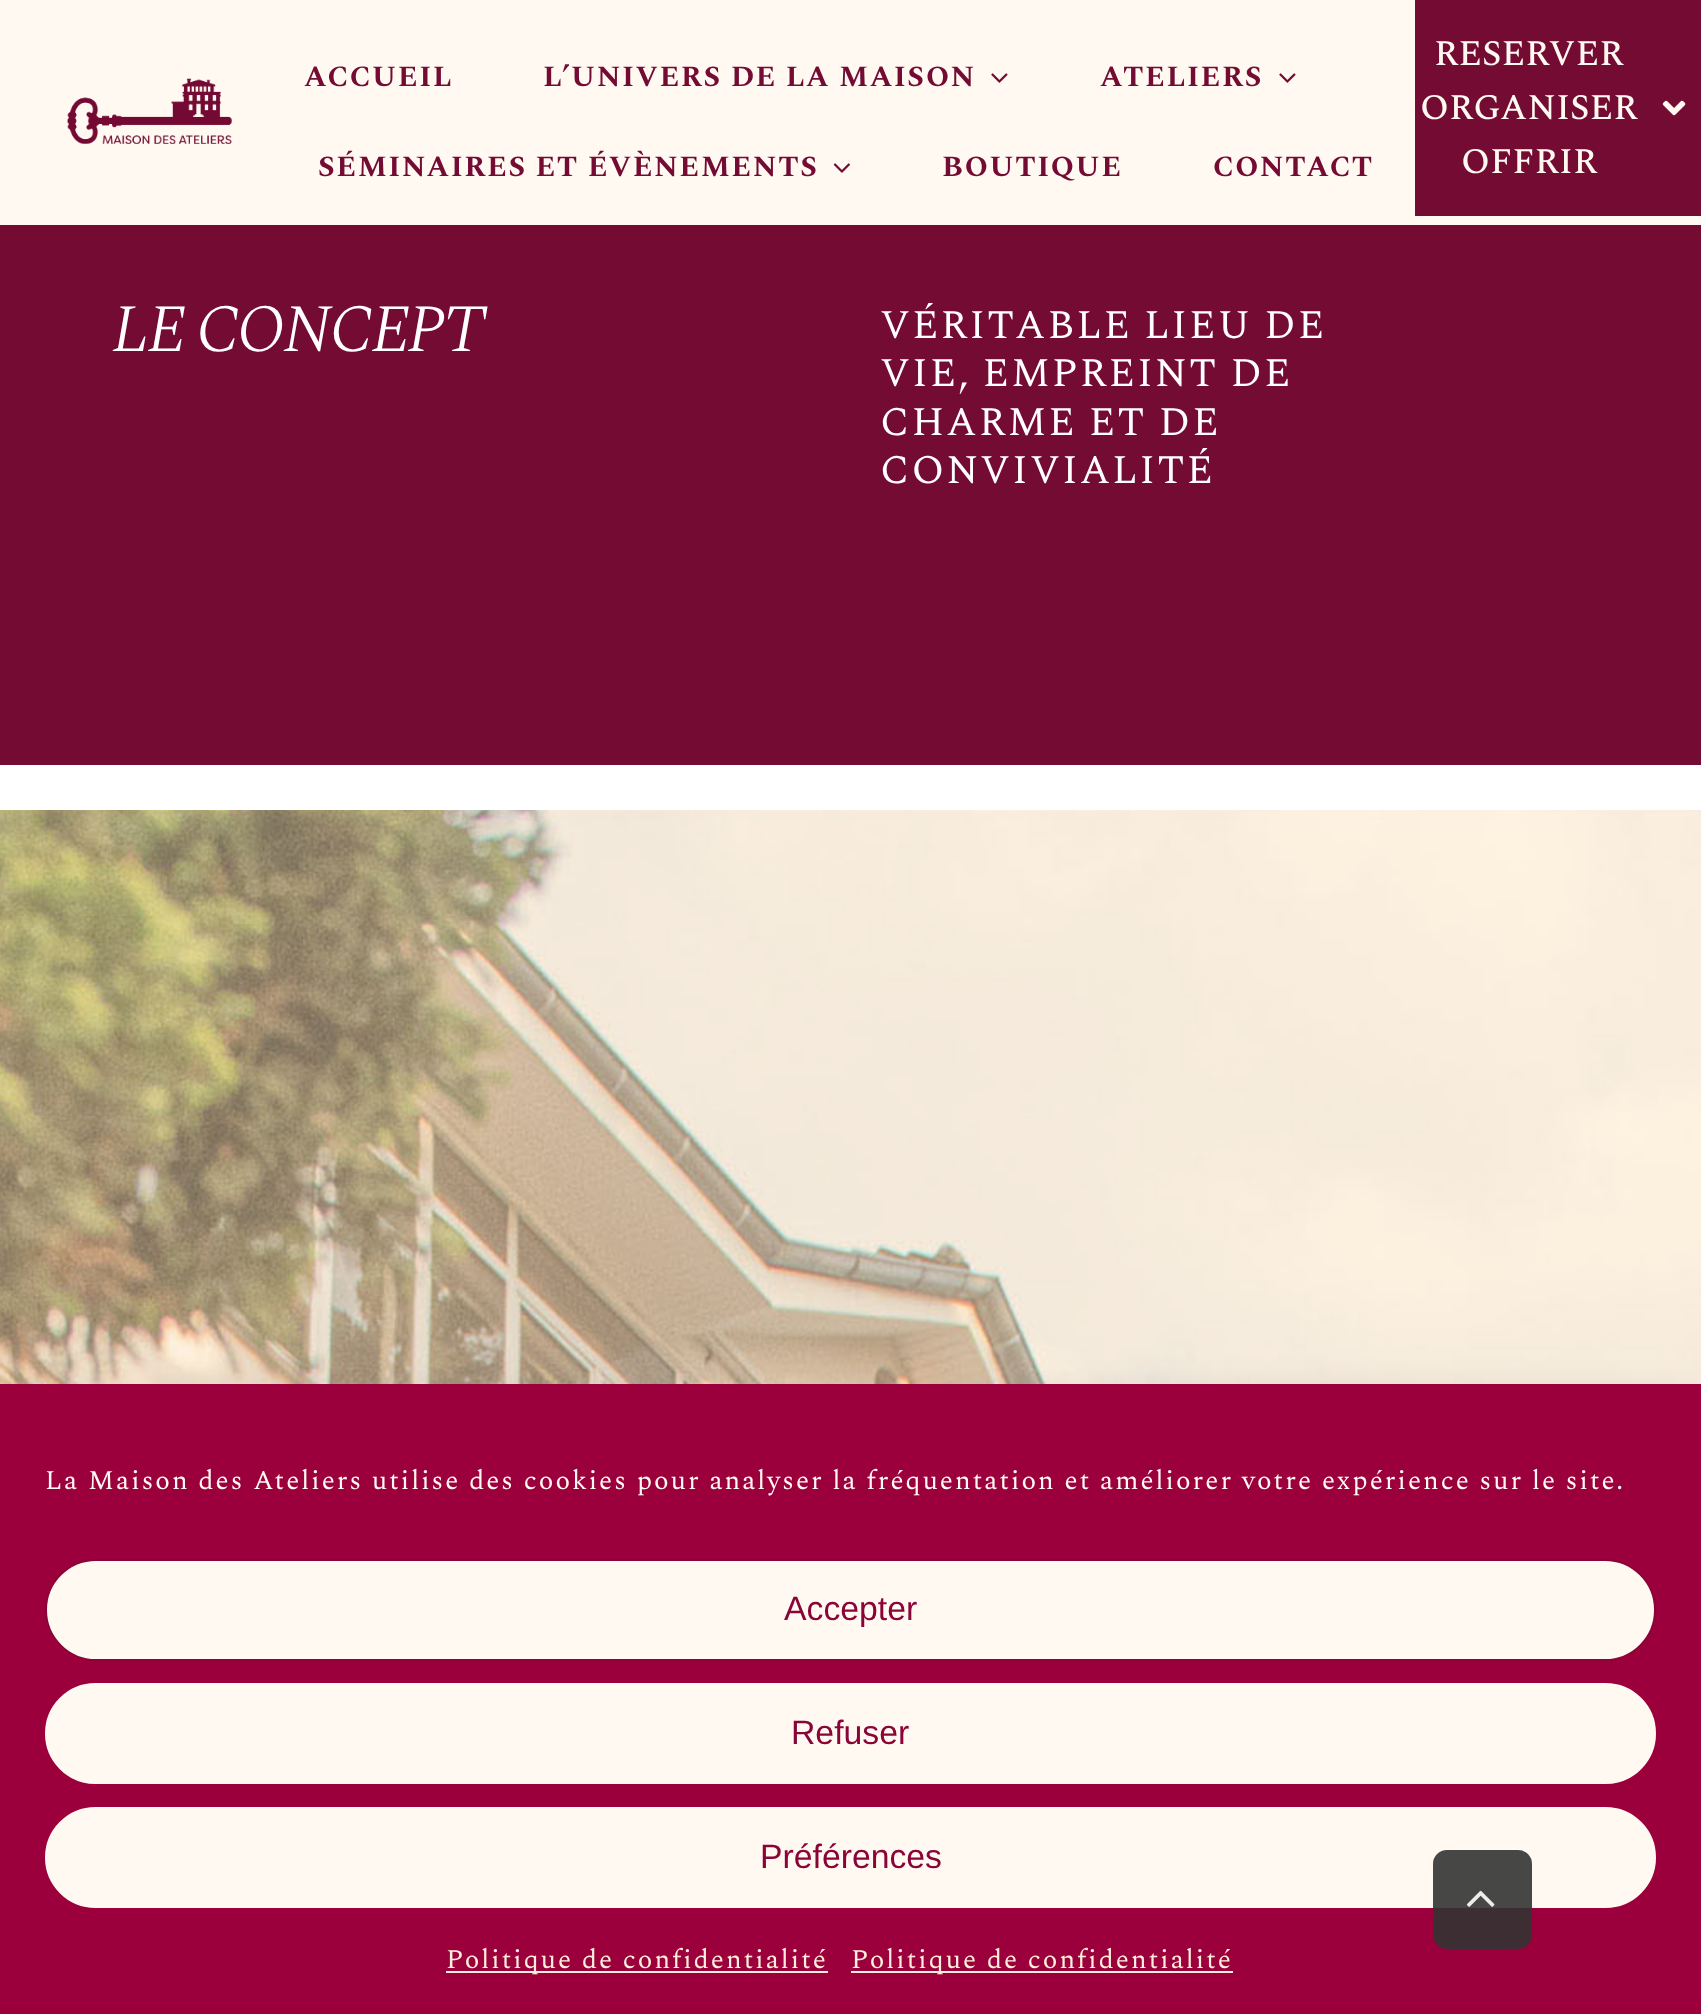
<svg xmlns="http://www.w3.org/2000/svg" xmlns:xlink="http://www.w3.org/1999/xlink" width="1701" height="2014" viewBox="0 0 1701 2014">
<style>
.cls-1{font:bold 29.25px Spectral;letter-spacing:1.5px;fill:#730b33}
.cls-2{font:500 36px Spectral;fill:#fff9f2}
.cls-3{font:italic 300 67.5px Spectral;letter-spacing:-3.4px;fill:#ffffff}
.cls-4{font:40.5px Spectral;letter-spacing:2.02px;fill:#ffffff}
.cls-5{font:27px Spectral;letter-spacing:2.02px;fill:#fff9f2}
.cls-6{font:33.75px Liberation Sans;fill:#8a0437}
.cls-7{font:27px Spectral;letter-spacing:2.02px;fill:#feeedb}
</style>
<rect width="100%" height="100%" fill="#ffffff"/>
<rect fill="#fff9f2" x="0" y="0" width="1701" height="225"/>
<image xlink:href="image0.png" x="67" y="78" width="165" height="66"/>
<image xlink:href="image1.png" x="991" y="73" width="17" height="10"/>
<image xlink:href="image1.png" x="1279" y="73" width="17" height="10"/>
<image xlink:href="image2.png" x="833" y="163" width="17" height="10"/>
<rect fill="#730b33" x="1415" y="0" width="286" height="216"/>
<image xlink:href="image3.png" x="1662" y="100" width="24" height="16"/>
<rect fill="#730b33" x="0" y="225" width="1701" height="540"/>
<image xlink:href="image4.png" x="0" y="810" width="1701" height="574"/>
<rect fill="#000000" fill-opacity="0.19" filter="blur(22.5px)" x="0" y="1406" width="1701" height="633"/>
<rect fill="#9b003c" x="0" y="1384" width="1701" height="630"/>
<rect fill="#fff9f2" stroke="#8a0437" stroke-width="2" x="46" y="1560" width="1609" height="100" rx="50"/>
<rect fill="#fff9f2" stroke="#fff9f2" stroke-width="2" x="46" y="1684" width="1609" height="99" rx="49.5"/>
<rect fill="#fff9f2" stroke="#fff9f2" stroke-width="2" x="46" y="1808" width="1609" height="99" rx="49.5"/>
<rect fill="#feeedb" x="446" y="1971" width="382" height="2"/>
<rect fill="#feeedb" x="851" y="1971" width="382" height="2"/>
<rect fill="#333333" fill-opacity="0.9" x="1433" y="1850" width="99" height="99" rx="14"/>
<image xlink:href="image5.png" x="1466" y="1890" width="29" height="17"/>
<text class="cls-1" x="304" y="86">ACCUEIL</text>
<text class="cls-1" x="543" y="86">L’UNIVERS DE LA MAISON</text>
<text class="cls-1" x="1100" y="86">ATELIERS</text>
<text class="cls-1" x="318" y="176">SÉMINAIRES ET ÉVÈNEMENTS</text>
<text class="cls-1" x="942" y="176">BOUTIQUE</text>
<text class="cls-1" x="1213" y="176">CONTACT</text>
<text class="cls-2" x="1434" y="65">RESERVER</text>
<text class="cls-2" x="1420" y="119">ORGANISER</text>
<text class="cls-2" x="1461" y="173">OFFRIR</text>
<text class="cls-3" x="112" y="351">LE CONCEPT</text>
<text class="cls-4"><tspan x="880" y="338">VÉRITABLE LIEU DE</tspan><tspan x="880" y="386">VIE, EMPREINT DE</tspan><tspan x="880" y="435">CHARME ET DE</tspan><tspan x="880" y="483">CONVIVIALITÉ</tspan></text>
<text class="cls-5" x="45" y="1489">La Maison des Ateliers utilise des cookies pour analyser la fréquentation et améliorer votre expérience sur le site.</text>
<text class="cls-6" x="784" y="1620">Accepter</text>
<text class="cls-6" x="791" y="1744">Refuser</text>
<text class="cls-6" x="760" y="1868">Préférences</text>
<text class="cls-7" x="446" y="1968">Politique de confidentialité</text>
<text class="cls-7" x="851" y="1968">Politique de confidentialité</text>
</svg>
